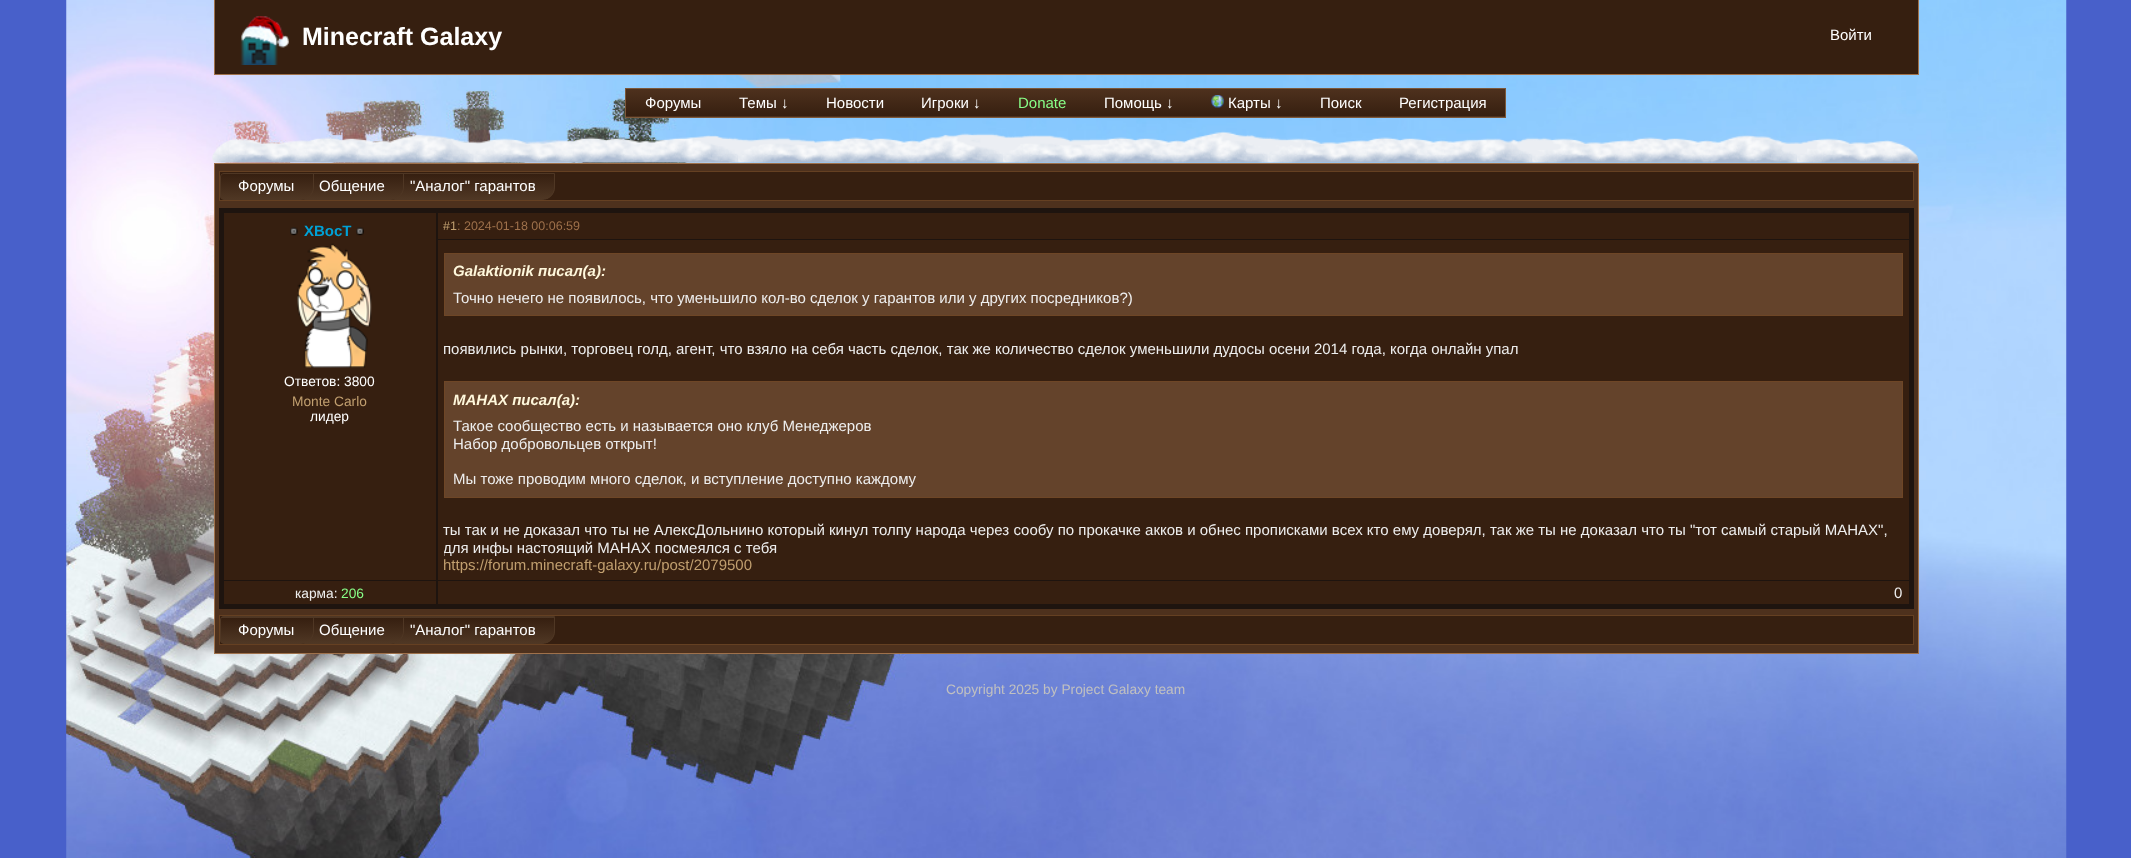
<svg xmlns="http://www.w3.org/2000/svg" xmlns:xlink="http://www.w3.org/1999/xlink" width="2131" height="858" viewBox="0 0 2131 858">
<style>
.cls-1{font:bold 25px Liberation Sans;fill:#ffffff}
.cls-2{font:15px Liberation Sans;fill:#ffffff}
.cls-3{font:15px Liberation Sans;fill:#88ff88}
.cls-4{font:bold 15px Liberation Sans;fill:#00a1d6}
.cls-5{font:13.75px Liberation Sans;fill:#ffffff}
.cls-6{font:13.75px Liberation Sans;fill:#c19f6f}
.cls-7{font:12.5px Liberation Sans;fill:#c19f6f}
.cls-8{font:12.5px Liberation Sans;fill:#9f714b}
.cls-9{font:italic bold 15px Liberation Sans;fill:#fff8dc}
.cls-10{font:15px Liberation Sans;fill:#eeeeee}
.cls-11{font:15px Liberation Sans;fill:#c19f6f}
.cls-12{font:13.75px Liberation Sans;fill:#eeeeee}
.cls-13{font:13.75px Liberation Sans;fill:#88ff88}
.cls-14{font:13.75px Liberation Sans;fill:#c0c0c0}
</style>
<defs>
<linearGradient id="g1" gradientUnits="userSpaceOnUse" x1="626" y1="89" x2="626" y2="116"><stop offset="0" stop-color="#4e311d"/><stop offset="1" stop-color="#361f10"/></linearGradient>
<linearGradient id="g2" gradientUnits="userSpaceOnUse" x1="626" y1="116" x2="626" y2="144"><stop offset="0" stop-color="#4e311d"/><stop offset="1" stop-color="#361f10"/></linearGradient>
<clipPath id="clip1"><path d="M395 173H555V187C555 194 549 200 542 200H395C393 200 391 198 391 196V177C391 175 393 173 395 173Z"/></clipPath>
<linearGradient id="g3" gradientUnits="userSpaceOnUse" x1="393" y1="174" x2="393" y2="199"><stop offset="0" stop-color="#361f10"/><stop offset="1" stop-color="#4f3724"/></linearGradient>
<clipPath id="clip2"><path d="M305 173H404V187C404 194 398 200 391 200H305C303 200 301 198 301 196V177C301 175 303 173 305 173Z"/></clipPath>
<linearGradient id="g4" gradientUnits="userSpaceOnUse" x1="303" y1="174" x2="303" y2="199"><stop offset="0" stop-color="#361f10"/><stop offset="1" stop-color="#4f3724"/></linearGradient>
<clipPath id="clip3"><path d="M224 173H314V187C314 194 308 200 301 200H224C222 200 220 198 220 196V177C220 175 222 173 224 173Z"/></clipPath>
<linearGradient id="g5" gradientUnits="userSpaceOnUse" x1="221" y1="174" x2="221" y2="199"><stop offset="0" stop-color="#361f10"/><stop offset="1" stop-color="#4f3724"/></linearGradient>
<linearGradient id="g6" gradientUnits="userSpaceOnUse" x1="393" y1="593" x2="393" y2="618"><stop offset="0" stop-color="#361f10"/><stop offset="1" stop-color="#4f3724"/></linearGradient>
<clipPath id="clip4"><path d="M395 616H555V631C555 638 549 644 542 644H395C393 644 391 642 391 640V620C391 618 393 616 395 616Z"/></clipPath>
<linearGradient id="g7" gradientUnits="userSpaceOnUse" x1="393" y1="618" x2="393" y2="643"><stop offset="0" stop-color="#361f10"/><stop offset="1" stop-color="#4f3724"/></linearGradient>
<linearGradient id="g8" gradientUnits="userSpaceOnUse" x1="303" y1="593" x2="303" y2="618"><stop offset="0" stop-color="#361f10"/><stop offset="1" stop-color="#4f3724"/></linearGradient>
<clipPath id="clip5"><path d="M305 616H404V631C404 638 398 644 391 644H305C303 644 301 642 301 640V620C301 618 303 616 305 616Z"/></clipPath>
<linearGradient id="g9" gradientUnits="userSpaceOnUse" x1="303" y1="618" x2="303" y2="643"><stop offset="0" stop-color="#361f10"/><stop offset="1" stop-color="#4f3724"/></linearGradient>
<clipPath id="clip6"><path d="M224 616H314V631C314 638 308 644 301 644H224C222 644 220 642 220 640V620C220 618 222 616 224 616Z"/></clipPath>
<linearGradient id="g10" gradientUnits="userSpaceOnUse" x1="221" y1="593" x2="221" y2="618"><stop offset="0" stop-color="#361f10"/><stop offset="1" stop-color="#4f3724"/></linearGradient>
<linearGradient id="g11" gradientUnits="userSpaceOnUse" x1="221" y1="618" x2="221" y2="643"><stop offset="0" stop-color="#361f10"/><stop offset="1" stop-color="#4f3724"/></linearGradient>
<clipPath id="clip7"><rect x="444" y="246" width="1459" height="328"/></clipPath>
</defs>
<rect width="100%" height="100%" fill="#4860ca"/>
<image xlink:href="image0.png" x="66" y="0" width="2001" height="858"/>
<rect fill="#361f10" x="215" y="0" width="1703" height="74"/>
<rect fill="#9f714b" x="1918" y="0" width="1" height="75"/>
<rect fill="#9f714b" x="214" y="74" width="1705" height="1"/>
<rect fill="#9f714b" x="214" y="0" width="1" height="75"/>
<image xlink:href="image1.png" x="240" y="16" width="49" height="49"/>
<rect fill="url(#g1)" x="626" y="89" width="879" height="27"/>
<rect fill="url(#g2)" x="625" y="116" width="881" height="1"/>
<rect fill="none" stroke="#7c583a" x="625.5" y="88.5" width="880" height="29"/>
<image xlink:href="image2.png" x="1211" y="95" width="13" height="13"/>
<image xlink:href="image3.png" x="212" y="131" width="1707" height="32"/>
<rect fill="#4e311d" stroke="#9f714b" x="214.5" y="163.5" width="1704" height="490"/>
<rect fill="#361f10" stroke="#654022" x="219.5" y="171.5" width="1694" height="29"/>
<g clip-path="url(#clip1)">
<rect fill="url(#g3)" x="396" y="174" width="159" height="25"/>
</g>
<path fill="none" stroke="#4f3724" d="M395 173.5H554.5V187C554.5 194 549 199.5 542 199.5H395C393 199.5 391.5 198 391.5 196V177C391.5 175 393 173.5 395 173.5Z"/>
<g clip-path="url(#clip2)">
<rect fill="url(#g4)" x="306" y="174" width="98" height="25"/>
</g>
<path fill="none" stroke="#4f3724" d="M305 173.5H403.5V187C403.5 194 398 199.5 391 199.5H305C303 199.5 301.5 198 301.5 196V177C301.5 175 303 173.5 305 173.5Z"/>
<g clip-path="url(#clip3)">
<rect fill="url(#g5)" x="220" y="174" width="94" height="25"/>
</g>
<path fill="none" stroke="#4f3724" d="M224 173.5H313.5V187C313.5 194 308 199.5 301 199.5H224C222 199.5 220.5 198 220.5 196V177C220.5 175 222 173.5 224 173.5Z"/>
<rect fill="#1e140f" x="219" y="208" width="1695" height="401"/>
<rect fill="#361f10" x="224" y="213" width="212" height="367"/>
<image xlink:href="image4.png" x="290" y="227" width="8" height="9"/>
<image xlink:href="image5.png" x="356" y="227" width="8" height="9"/>
<image xlink:href="image6.png" x="297" y="243" width="75" height="125"/>
<rect fill="#361f10" x="438" y="213" width="1471" height="26"/>
<rect fill="#361f10" x="438" y="240" width="1471" height="340"/>
<rect fill="#64432b" stroke="#6e4626" x="444.5" y="253.5" width="1458" height="62"/>
<rect fill="#64432b" stroke="#6e4626" x="444.5" y="381.5" width="1458" height="116"/>
<rect fill="#361f10" x="224" y="581" width="212" height="23"/>
<rect fill="#361f10" x="438" y="581" width="1471" height="23"/>
<rect fill="#361f10" stroke="#654022" x="219.5" y="615.5" width="1694" height="29"/>
<rect fill="url(#g6)" x="404" y="617" width="151" height="1"/>
<g clip-path="url(#clip4)">
<rect fill="url(#g7)" x="396" y="618" width="159" height="25"/>
</g>
<path fill="none" stroke="#4f3724" d="M395 616.5H554.5V631C554.5 638 549 643.5 542 643.5H395C393 643.5 391.5 642 391.5 640V620C391.5 618 393 616.5 395 616.5Z"/>
<rect fill="url(#g8)" x="314" y="617" width="90" height="1"/>
<g clip-path="url(#clip5)">
<rect fill="url(#g9)" x="306" y="618" width="98" height="25"/>
</g>
<path fill="none" stroke="#4f3724" d="M305 616.5H403.5V631C403.5 638 398 643.5 391 643.5H305C303 643.5 301.5 642 301.5 640V620C301.5 618 303 616.5 305 616.5Z"/>
<g clip-path="url(#clip6)">
<rect fill="url(#g10)" x="220" y="616" width="94" height="2"/>
<rect fill="url(#g11)" x="220" y="618" width="94" height="25"/>
</g>
<path fill="none" stroke="#4f3724" d="M224 616.5H313.5V631C313.5 638 308 643.5 301 643.5H224C222 643.5 220.5 642 220.5 640V620C220.5 618 222 616.5 224 616.5Z"/>
<text class="cls-1" x="302" y="45">Minecraft Galaxy</text>
<text class="cls-2" x="1830" y="40">Войти</text>
<text class="cls-2" x="645" y="108">Форумы</text>
<text class="cls-2" x="739" y="108">Темы ↓</text>
<text class="cls-2" x="826" y="108">Новости</text>
<text class="cls-2" x="921" y="108">Игроки ↓</text>
<text class="cls-3" x="1018" y="108">Donate</text>
<text class="cls-2" x="1104" y="108">Помощь ↓</text>
<text class="cls-2" x="1228" y="108">Карты ↓</text>
<text class="cls-2" x="1320" y="108">Поиск</text>
<text class="cls-2" x="1399" y="108">Регистрация</text>
<text class="cls-2" x="238" y="191">Форумы</text>
<text class="cls-2" x="319" y="191">Общение</text>
<text class="cls-2" x="410" y="191">"Аналог" гарантов</text>
<text class="cls-4" x="304" y="236">XBocT</text>
<text class="cls-5" x="284" y="386">Ответов: 3800</text>
<text class="cls-6" x="292" y="406">Monte Carlo</text>
<text class="cls-5" x="310" y="421">лидер</text>
<text class="cls-7" x="443" y="230">#1</text>
<text class="cls-8" x="457" y="230">: 2024-01-18 00:06:59</text>
<text class="cls-9" x="453" y="276">Galaktionik писал(а):</text>
<text class="cls-10" x="453" y="303">Точно нечего не появилось, что уменьшило кол-во сделок у гарантов или у других посредников?)</text>
<text class="cls-10" x="443" y="354">появились рынки, торговец голд, агент, что взяло на себя часть сделок, так же количество сделок уменьшили дудосы осени 2014 года, когда онлайн упал</text>
<text class="cls-9" x="453" y="405">MAHAX писал(а):</text>
<text class="cls-10"><tspan x="453" y="431">Такое сообщество есть и называется оно клуб Менеджеров</tspan><tspan x="453" y="449">Набор добровольцев открыт!</tspan></text>
<text class="cls-10" x="453" y="484">Мы тоже проводим много сделок, и вступление доступно каждому</text>
<text class="cls-10" x="443" y="535">ты так и не доказал что ты не АлексДольнино который кинул толпу народа через сообу по прокачке акков и обнес прописками всех кто ему доверял, так же ты не доказал что ты "тот самый старый МАНАХ",</text>
<g clip-path="url(#clip7)">
<text class="cls-10" x="443" y="553">для инфы настоящий МАНАХ посмеялся с тебя</text>
</g>
<text class="cls-11" x="443" y="570">https://forum.minecraft-galaxy.ru/post/2079500</text>
<text class="cls-12" x="295" y="598">карма:</text>
<text class="cls-13" x="341" y="598">206</text>
<text class="cls-10" x="1894" y="598">0</text>
<text class="cls-2" x="238" y="635">Форумы</text>
<text class="cls-2" x="319" y="635">Общение</text>
<text class="cls-2" x="410" y="635">"Аналог" гарантов</text>
<text class="cls-14" x="946" y="694">Copyright 2025 by Project Galaxy team</text>
</svg>
